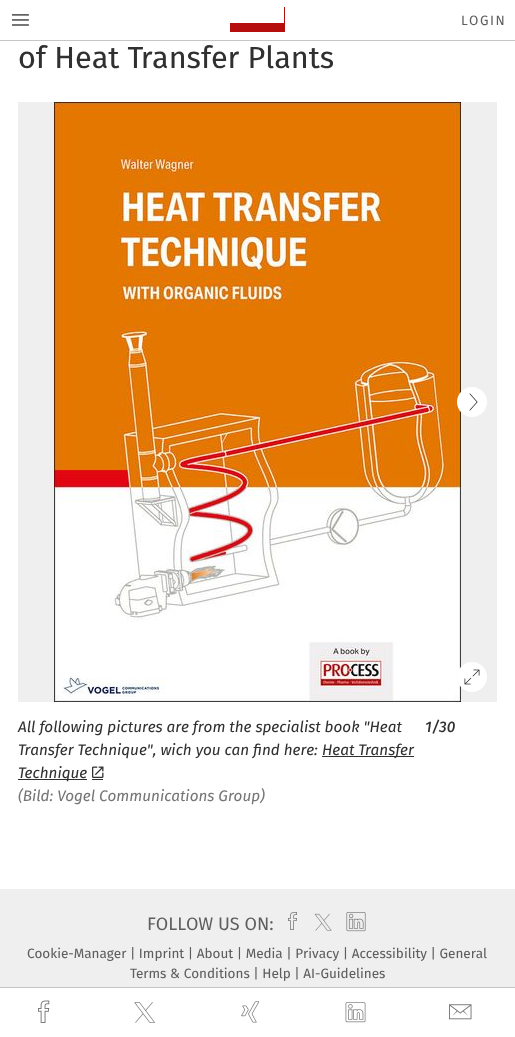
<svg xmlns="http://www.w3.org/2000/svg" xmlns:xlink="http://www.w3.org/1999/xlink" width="515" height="1037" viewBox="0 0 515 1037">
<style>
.cls-1{font:13.5px 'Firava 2';letter-spacing:1.5px;fill:#5e5e5e}
.cls-2{font:30.6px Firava;fill:#303030}
.cls-3{font:italic 15.3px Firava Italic;fill:#303030}
.cls-4{font:italic 15.3px Firava Italic;fill:#767676}
.cls-5{font:italic 500 15.3px Firava Italic;fill:#303030}
.cls-6{font:18px 'Firava 2';fill:#5e5e5e}
.cls-7{font:13.5px Firava;fill:#5e5e5e}
</style>
<rect width="100%" height="100%" fill="#ffffff"/>
<rect fill="#c6c6c6" x="0" y="40" width="515" height="1"/>
<image xlink:href="image0.png" x="12" y="14" width="17" height="12"/>
<rect fill="#b60e0c" x="284" y="7" width="1" height="16"/>
<rect fill="#b60e0c" x="230" y="23" width="55" height="9"/>
<rect fill="#efefef" x="18" y="102" width="479" height="600"/>
<image xlink:href="image1.png" x="54" y="102" width="407" height="600"/>
<image xlink:href="image2.png" x="457" y="387" width="30" height="30"/>
<image xlink:href="image3.png" x="459" y="662" width="28" height="30"/>
<rect fill="#303030" x="322" y="756" width="92" height="1"/>
<rect fill="#303030" x="18" y="779" width="69" height="1"/>
<rect fill="#303030" x="92" y="779" width="11" height="1"/>
<image xlink:href="image4.png" x="92" y="766" width="12" height="12"/>
<rect fill="#c6c6c6" x="0" y="987" width="515" height="1"/>
<image xlink:href="image5.png" x="38" y="1000" width="12" height="23"/>
<image xlink:href="image6.png" x="134" y="1002" width="21" height="21"/>
<image xlink:href="image7.png" x="241" y="1001" width="19" height="22"/>
<image xlink:href="image8.png" x="345" y="1002" width="21" height="21"/>
<image xlink:href="image9.png" x="449" y="1004" width="23" height="16"/>
<rect fill="#efefef" x="0" y="889" width="515" height="98"/>
<image xlink:href="image10.png" x="288" y="912" width="9" height="18"/>
<image xlink:href="image11.png" x="314" y="913" width="18" height="18"/>
<image xlink:href="image12.png" x="346" y="912" width="20" height="20"/>
<text class="cls-1" x="461" y="25">LOGIN</text>
<text class="cls-2" x="18" y="68">of Heat Transfer Plants</text>
<text class="cls-3"><tspan x="18" y="732">All following pictures are from the specialist book "Heat</tspan><tspan x="18" y="755">Transfer Technique", wich you can find here:</tspan></text>
<text class="cls-3" x="322" y="755">Heat Transfer</text>
<text class="cls-3" x="18" y="778">Technique</text>
<text class="cls-4" x="18" y="801">(Bild: Vogel Communications Group)</text>
<text class="cls-5" x="425" y="732">1/30</text>
<text class="cls-6" x="147" y="930">FOLLOW US ON:</text>
<text class="cls-7" x="27" y="958">Cookie-Manager | Imprint | About | Media | Privacy | Accessibility | General</text>
<text class="cls-7" x="130" y="978">Terms &amp; Conditions | Help | AI-Guidelines</text>
</svg>
